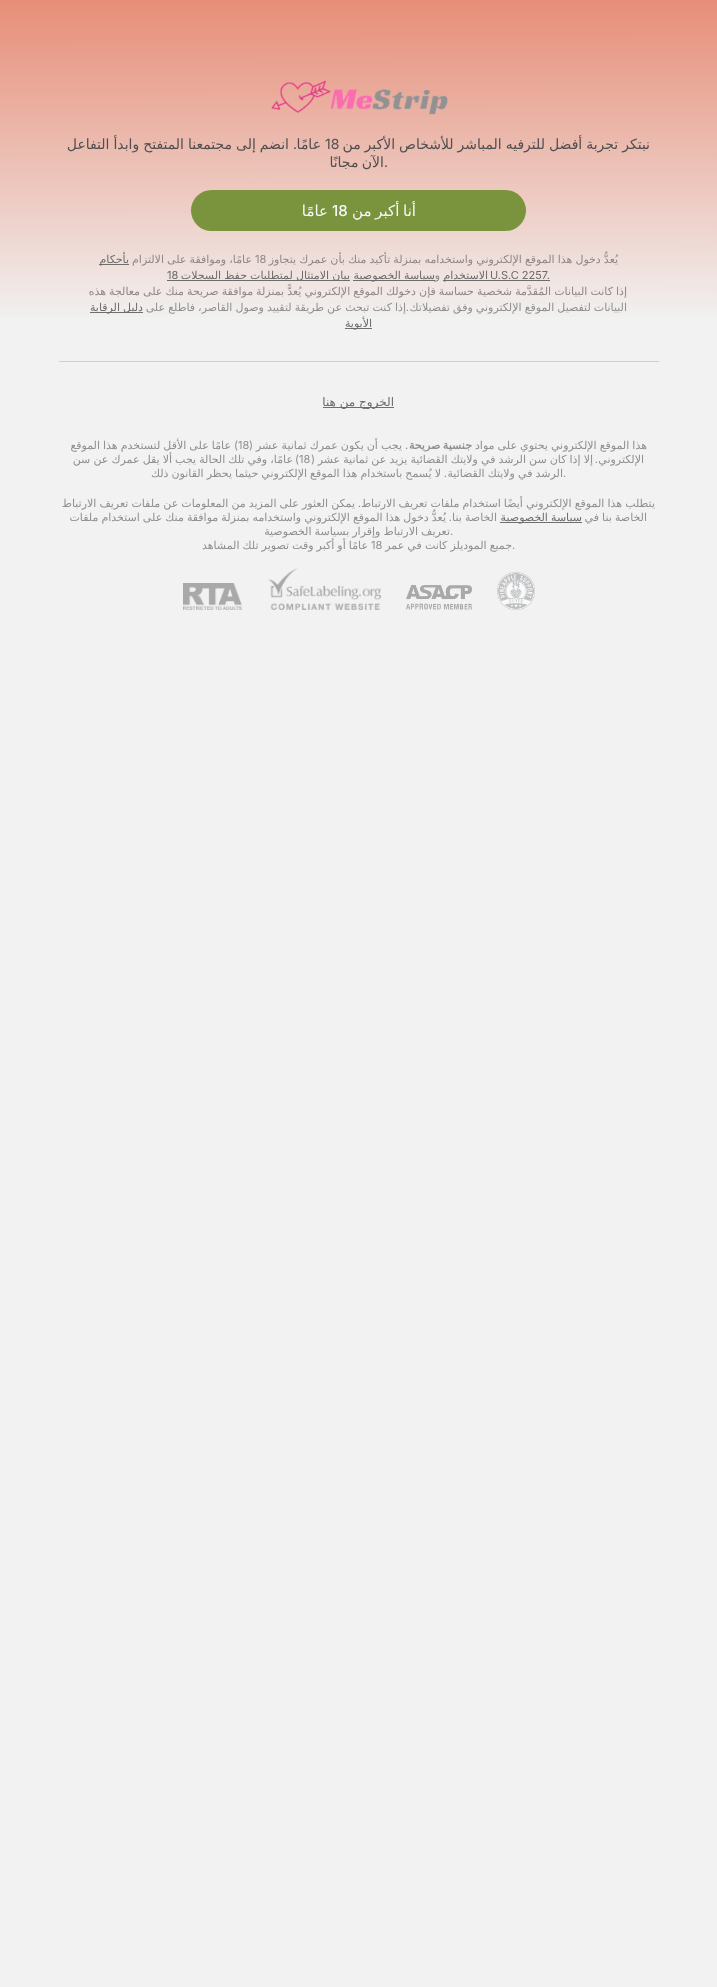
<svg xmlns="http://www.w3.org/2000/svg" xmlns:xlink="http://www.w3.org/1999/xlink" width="717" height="1987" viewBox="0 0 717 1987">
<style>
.cls-1{font:14px DejaVu Sans;direction:rtl;fill:#4f4f4f}
.cls-2{font:14px Inter;fill:#4f4f4f}
.cls-3{font:14px Inter;direction:rtl;fill:#4f4f4f}
.cls-4{font:15px DejaVu Sans;direction:rtl;fill:#f8f8f8}
.cls-5{font:500 15px Inter;fill:#f8f8f8}
.cls-6{font:11px DejaVu Sans;direction:rtl;fill:#8f8887}
.cls-7{font:11px Inter;fill:#8f8887}
.cls-8{font:11px DejaVu Sans;direction:rtl;fill:#6e6b6a}
.cls-9{font:11px Inter;fill:#6e6b6a}
.cls-10{font:11px DejaVu Sans;direction:rtl;fill:#908f8e}
.cls-11{font:11px Inter;direction:rtl;fill:#908f8e}
.cls-12{font:12px DejaVu Sans;direction:rtl;fill:#6e6b6a}
.cls-13{font:bold 11px DejaVu Sans;direction:rtl;fill:#908f8e}
.cls-14{font:11px Inter;fill:#908f8e}
</style>
<defs>
<linearGradient id="g1" gradientUnits="userSpaceOnUse" x1="358" y1="0" x2="359" y2="640"><stop offset="0" stop-color="#e78e78"/><stop offset="0.5" stop-color="#f1f1f1"/></linearGradient>
</defs>
<rect width="100%" height="100%" fill="#f2f2f2"/>
<rect fill="url(#g1)" x="0" y="0" width="717" height="317"/>
<image xlink:href="image0.png" x="271" y="80" width="177" height="35"/>
<rect fill="#79943d" x="191" y="190" width="335" height="41" rx="20.5"/>
<rect fill="#6f6c6b" x="99" y="264" width="30" height="1"/>
<rect fill="#6f6d6c" x="443" y="280" width="107" height="1"/>
<rect fill="#6f6d6c" x="167" y="280" width="183" height="1"/>
<rect fill="#6f6f6f" x="90" y="312" width="53" height="1"/>
<rect fill="#6f6f6f" x="345" y="328" width="27" height="1"/>
<rect fill="#cfcfcf" x="59" y="361" width="600" height="1"/>
<rect fill="#6f6f6f" x="323" y="407" width="71" height="1"/>
<rect fill="#6f6f6f" x="500" y="522" width="82" height="1"/>
<image xlink:href="image1.png" x="497" y="572" width="38" height="38"/>
<image xlink:href="image2.png" x="406" y="585" width="66" height="25"/>
<image xlink:href="image3.png" x="268" y="568" width="113" height="42"/>
<image xlink:href="image4.png" x="183" y="583" width="59" height="27"/>
<text class="cls-1" x="650" y="149" word-spacing="-0.5">نبتكر تجربة أفضل للترفيه المباشر للأشخاص الأكبر من</text>
<text class="cls-2" x="325" y="149">18</text>
<text class="cls-1" x="321" y="149">عامًا</text>
<text class="cls-3" x="297" y="149">.</text>
<text class="cls-1" x="289" y="149" word-spacing="-0.5">انضم إلى مجتمعنا المتفتح وابدأ التفاعل</text>
<text class="cls-2" x="384" y="167">.</text>
<text class="cls-1" x="384" y="167" word-spacing="-1">الآن مجانًا</text>
<text class="cls-4" x="416" y="216" word-spacing="-1">أنا أكبر من</text>
<text class="cls-5" x="332" y="216">18</text>
<text class="cls-4" x="328" y="216">عامًا</text>
<text class="cls-6" x="618" y="263" word-spacing="-0.4">يُعدُّ دخول هذا الموقع الإلكتروني واستخدامه بمنزلة تأكيد منك بأن عمرك يتجاوز</text>
<text class="cls-7" x="255" y="263">18</text>
<text class="cls-6" x="252" y="263" word-spacing="-0.4">عامًا، وموافقة على الالتزام</text>
<text class="cls-8" x="129" y="263">بأحكام</text>
<text class="cls-9" x="490" y="279">U.S.C 2257.</text>
<text class="cls-8" x="488" y="279">الاستخدام</text>
<text class="cls-6" x="440" y="279">و</text>
<rect fill="#4f4f4f" fill-opacity="0.8" x="353" y="280" width="82" height="1"/>
<text class="cls-8" x="435" y="279" word-spacing="-0.4">سياسة الخصوصية</text>
<text class="cls-8" x="350" y="279" word-spacing="-0.4">بيان الامتثال لمتطلبات حفظ السجلات</text>
<text class="cls-9" x="167" y="279">18</text>
<text class="cls-6" x="627" y="295" word-spacing="-0.4">إذا كانت البيانات المُقدَّمة شخصية حساسة فإن دخولك الموقع الإلكتروني يُعدًّ بمنزلة موافقة صريحة منك على معالجة هذه</text>
<text class="cls-10" x="627" y="311" word-spacing="-0.4">البيانات لتفصيل الموقع الإلكتروني وفق تفضيلاتك</text>
<text class="cls-11" x="409" y="311">.</text>
<text class="cls-10" x="406" y="311" word-spacing="-0.4">إذا كنت تبحث عن طريقة لتقييد وصول القاصر، فاطلع على</text>
<text class="cls-8" x="143" y="311" word-spacing="-0.4">دليل الرقابة</text>
<text class="cls-8" x="372" y="327">الأبوية</text>
<text class="cls-12" x="394" y="406">الخروج من هنا</text>
<text class="cls-10" x="647" y="449" word-spacing="-0.4">هذا الموقع الإلكتروني يحتوي على مواد</text>
<text class="cls-13" x="472" y="449" word-spacing="-1">جنسية صريحة</text>
<text class="cls-14" x="405" y="449">.</text>
<text class="cls-10" x="402" y="449" word-spacing="-0.4">يجب أن يكون عمرك ثمانية عشر</text>
<text class="cls-11" x="253" y="449">(</text>
<text class="cls-14" x="238" y="449">18</text>
<text class="cls-11" x="238" y="449">)</text>
<text class="cls-10" x="231" y="449" word-spacing="-0.4">عامًا على الأقل لتستخدم هذا الموقع</text>
<text class="cls-10" x="644" y="463">الإلكتروني</text>
<text class="cls-11" x="598" y="463">.</text>
<text class="cls-10" x="593" y="463" word-spacing="-0.4">إلا إذا كان سن الرشد في ولايتك القضائية يزيد عن ثمانية عشر</text>
<text class="cls-11" x="315" y="463">(</text>
<text class="cls-14" x="299" y="463">18</text>
<text class="cls-11" x="299" y="463">)</text>
<text class="cls-10" x="293" y="463" word-spacing="-0.4">عامًا، وفي تلك الحالة يجب ألا يقل عمرك عن سن</text>
<text class="cls-14" x="563" y="477">.</text>
<text class="cls-10" x="563" y="477" word-spacing="-0.4">الرشد في ولايتك القضائية</text>
<text class="cls-11" x="447" y="477">.</text>
<text class="cls-10" x="441" y="477" word-spacing="-0.4">لا يُسمح باستخدام هذا الموقع الإلكتروني حيثما يحظر القانون ذلك</text>
<text class="cls-10" x="655" y="507" word-spacing="-0.4">يتطلب هذا الموقع الإلكتروني أيضًا استخدام ملفات تعريف الارتباط</text>
<text class="cls-11" x="361" y="507">.</text>
<text class="cls-10" x="355" y="507" word-spacing="-0.4">يمكن العثور على المزيد من المعلومات عن ملفات تعريف الارتباط</text>
<text class="cls-10" x="647" y="521" word-spacing="-0.4">الخاصة بنا في</text>
<text class="cls-8" x="582" y="521" word-spacing="-0.4">سياسة الخصوصية</text>
<text class="cls-10" x="497" y="521" word-spacing="-0.4">الخاصة بنا</text>
<text class="cls-11" x="452" y="521">.</text>
<text class="cls-10" x="446" y="521" word-spacing="-0.4">يُعدُّ دخول هذا الموقع الإلكتروني واستخدامه بمنزلة موافقة منك على استخدام ملفات</text>
<text class="cls-14" x="450" y="535">.</text>
<text class="cls-10" x="450" y="535" word-spacing="-0.4">تعريف الارتباط وإقرار بسياسة الخصوصية</text>
<text class="cls-14" x="512" y="549">.</text>
<text class="cls-10" x="512" y="549" word-spacing="-0.4">جميع الموديلز كانت في عمر</text>
<text class="cls-14" x="371" y="549">18</text>
<text class="cls-10" x="368" y="549" word-spacing="-0.4">عامًا أو أكبر وقت تصوير تلك المشاهد</text>
</svg>
